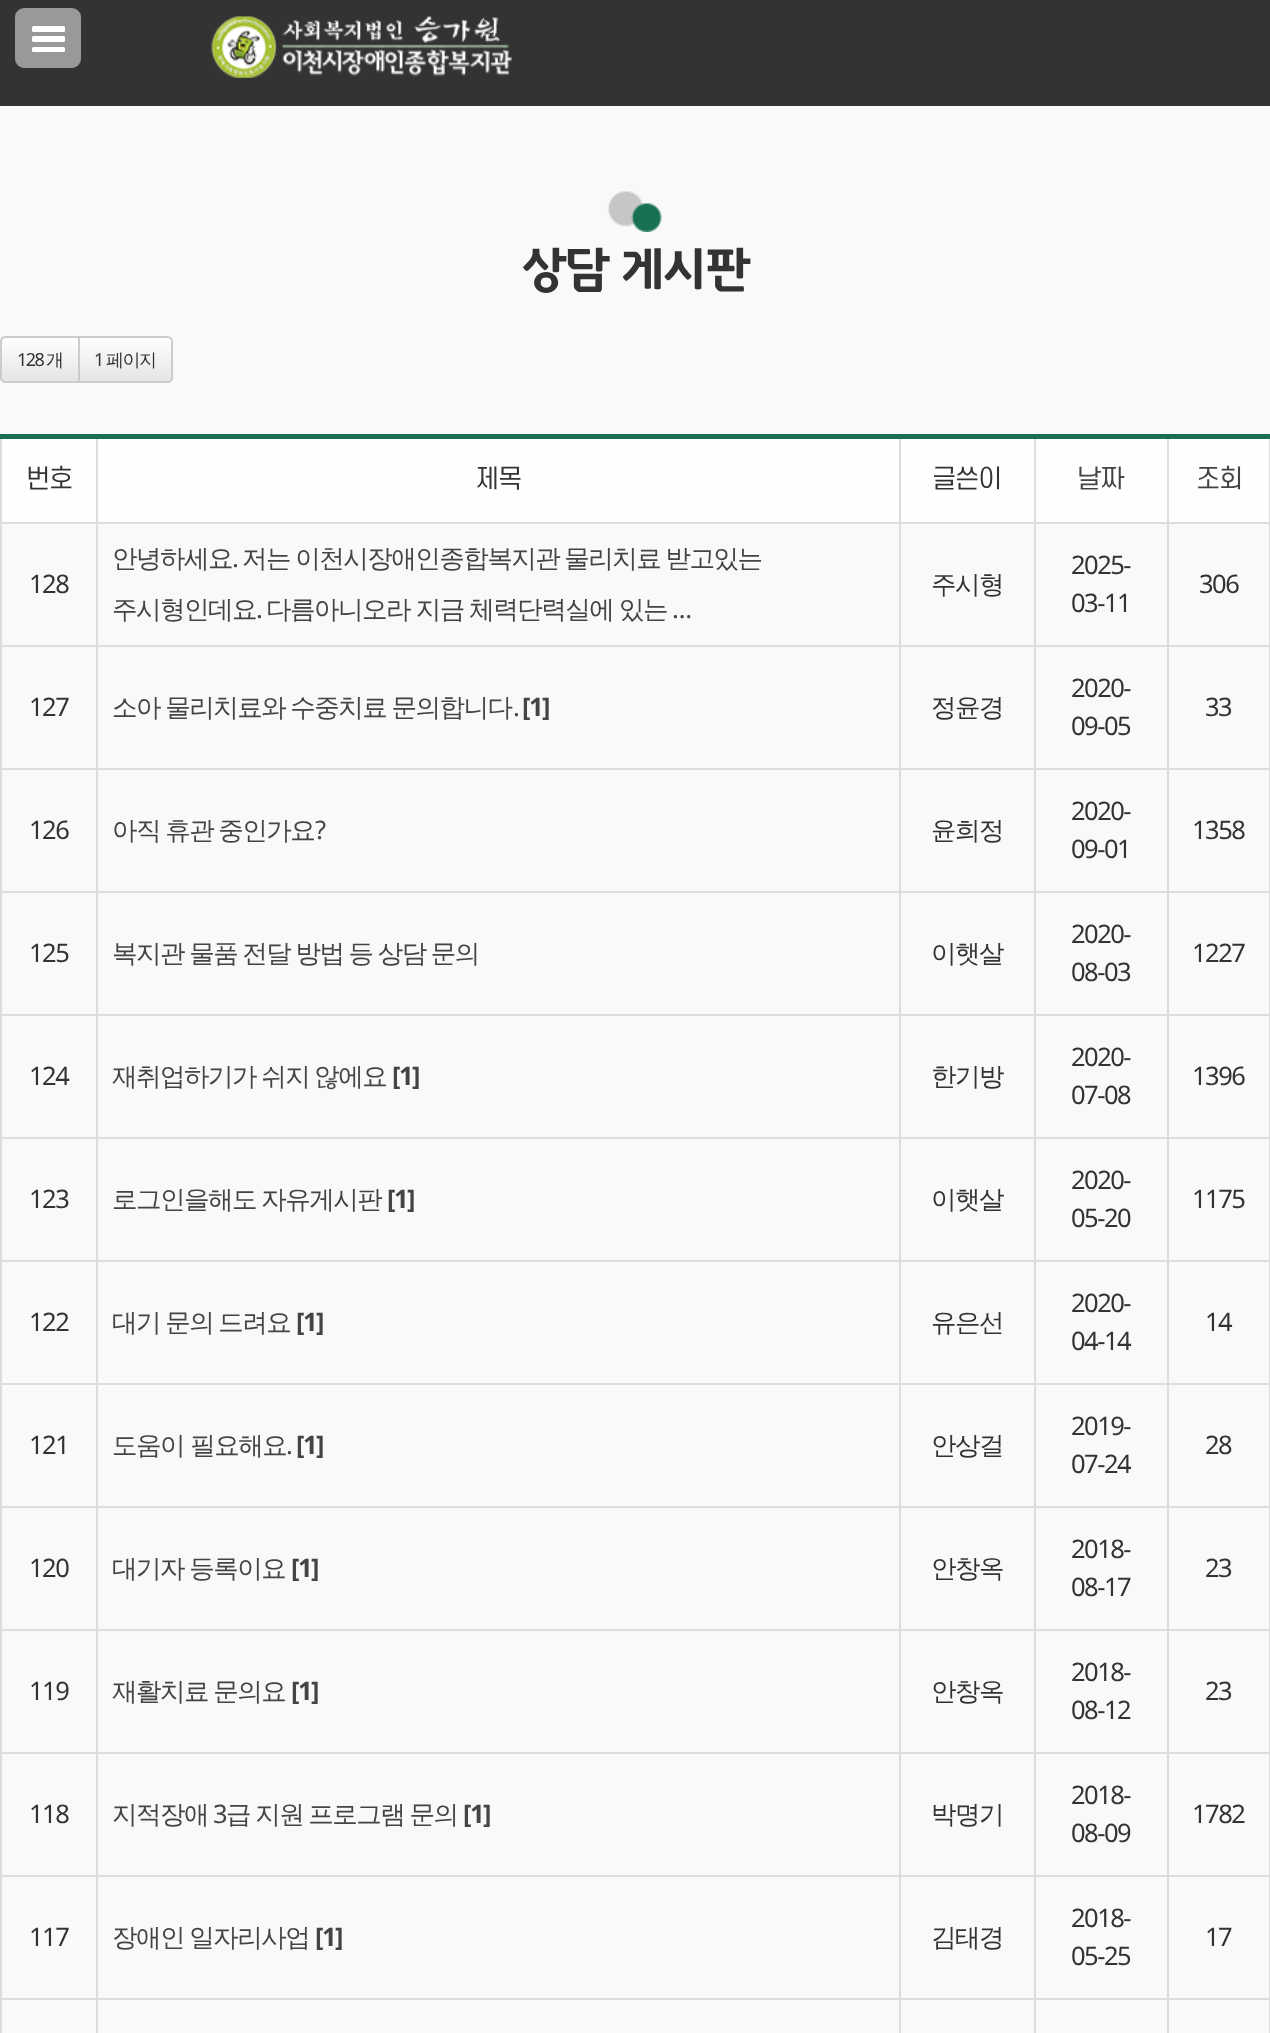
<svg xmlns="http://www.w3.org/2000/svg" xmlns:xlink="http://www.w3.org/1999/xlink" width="1270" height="2033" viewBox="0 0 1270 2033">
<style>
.cls-1{font:48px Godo;letter-spacing:-1.5px;fill:#333333}
.cls-2{font:18px Noto Sans;letter-spacing:-1.5px;fill:#333333}
.cls-3{font:500 18px WenQuanYi Zen Hei;letter-spacing:-1.5px;fill:#333333}
.cls-4{font:25.5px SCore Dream;letter-spacing:-1.5px;fill:#333333}
.cls-5{font:25.5px SCore Dream;letter-spacing:-1.5px;fill:#444444}
.cls-6{font:25.5px Noto Sans;letter-spacing:-1.5px;fill:#333333}
.cls-7{font:500 25.5px WenQuanYi Zen Hei;letter-spacing:-1.5px;fill:#444444}
.cls-8{font:25.5px Noto Sans;letter-spacing:-1.5px;fill:#444444}
.cls-9{font:500 25.5px WenQuanYi Zen Hei;letter-spacing:-1.5px;fill:#333333}
.cls-10{font:bold 25.5px Noto Sans;letter-spacing:-1.5px;fill:#444444}
</style>
<defs>
<clipPath id="clip1"><path d="M5 336H80V383H5C2 383 0 381 0 378V341C0 338 2 336 5 336Z"/></clipPath>
<linearGradient id="g1" gradientUnits="userSpaceOnUse" x1="40" y1="338" x2="40" y2="381"><stop offset="0" stop-color="#ffffff"/><stop offset="1" stop-color="#e5e5e5"/></linearGradient>
<clipPath id="clip2"><path d="M78 336H168C171 336 173 338 173 341V378C173 381 171 383 168 383H78Z"/></clipPath>
<linearGradient id="g2" gradientUnits="userSpaceOnUse" x1="125" y1="338" x2="125" y2="381"><stop offset="0" stop-color="#ffffff"/><stop offset="1" stop-color="#e5e5e5"/></linearGradient>
</defs>
<rect width="100%" height="100%" fill="#f9f9f9"/>
<rect fill="#333333" x="0" y="0" width="1270" height="106"/>
<rect fill="#999999" stroke="#999999" stroke-width="3" x="16.5" y="9.5" width="63" height="57" rx="7.5"/>
<rect fill="#ffffff" x="32" y="26" width="33" height="6" rx="1.5"/>
<rect fill="#ffffff" x="32" y="36" width="33" height="6" rx="1.5"/>
<rect fill="#ffffff" x="32" y="47" width="33" height="5" rx="1.5"/>
<image xlink:href="image0.png" x="211" y="16" width="301" height="62"/>
<image xlink:href="image1.png" x="607" y="191" width="55" height="41"/>
<g clip-path="url(#clip1)">
<rect fill="url(#g1)" x="0" y="338" width="78" height="43"/>
</g>
<path fill="none" stroke="#cccccc" stroke-width="2" d="M5 337H79V382H5C3 382 1 380 1 378V341C1 339 3 337 5 337Z"/>
<g clip-path="url(#clip2)">
<rect fill="url(#g2)" x="80" y="338" width="93" height="43"/>
</g>
<path fill="none" stroke="#cccccc" stroke-width="2" d="M79 337H168C170 337 172 339 172 341V378C172 380 170 382 168 382H79Z"/>
<rect fill="#dddddd" x="0" y="522" width="1270" height="2"/>
<rect fill="#dddddd" x="0" y="645" width="1270" height="2"/>
<rect fill="#dddddd" x="0" y="768" width="1270" height="2"/>
<rect fill="#dddddd" x="0" y="891" width="1270" height="2"/>
<rect fill="#dddddd" x="0" y="1014" width="1270" height="2"/>
<rect fill="#dddddd" x="0" y="1137" width="1270" height="2"/>
<rect fill="#dddddd" x="0" y="1260" width="1270" height="2"/>
<rect fill="#dddddd" x="0" y="1383" width="1270" height="2"/>
<rect fill="#dddddd" x="0" y="1506" width="1270" height="2"/>
<rect fill="#dddddd" x="0" y="1629" width="1270" height="2"/>
<rect fill="#dddddd" x="0" y="1752" width="1270" height="2"/>
<rect fill="#dddddd" x="0" y="1875" width="1270" height="2"/>
<rect fill="#dddddd" x="0" y="1998" width="1270" height="2"/>
<rect fill="#dddddd" x="0" y="435" width="2" height="1598"/>
<rect fill="#dddddd" x="96" y="435" width="2" height="1598"/>
<rect fill="#dddddd" x="899" y="435" width="2" height="1598"/>
<rect fill="#dddddd" x="1034" y="435" width="2" height="1598"/>
<rect fill="#dddddd" x="1269" y="435" width="1" height="1598"/>
<rect fill="#dddddd" x="1167" y="435" width="2" height="1598"/>
<rect fill="#187050" x="0" y="434" width="1270" height="5"/>
<rect fill="#fefefe" x="2" y="439" width="94" height="83"/>
<rect fill="#fefefe" x="98" y="439" width="801" height="83"/>
<rect fill="#fefefe" x="901" y="439" width="133" height="83"/>
<rect fill="#fefefe" x="1036" y="439" width="131" height="83"/>
<rect fill="#fefefe" x="1169" y="439" width="100" height="83"/>
<text class="cls-1" x="522" y="284">상담 게시판</text>
<text class="cls-2" x="17" y="366">128</text>
<text class="cls-3" x="46" y="366">개</text>
<text class="cls-2" x="94" y="366">1</text>
<text class="cls-3" x="106" y="366">페이지</text>
<text class="cls-4" x="26" y="488">번호</text>
<text class="cls-4" x="475" y="488">제목</text>
<text class="cls-4" x="932" y="488">글쓴이</text>
<text class="cls-5" x="1077" y="488">날짜</text>
<text class="cls-5" x="1196" y="488">조회</text>
<text class="cls-6" x="29" y="593">128</text>
<text class="cls-7" x="112" y="567">안녕하세요</text>
<text class="cls-8" x="232" y="567">.</text>
<text class="cls-7" x="242" y="567" word-spacing="-1">저는 이천시장애인종합복지관 물리치료 받고있는</text>
<text class="cls-7" x="112" y="618">주시형인데요</text>
<text class="cls-8" x="256" y="618">.</text>
<text class="cls-7" x="266" y="618" word-spacing="-0.5">다름아니오라 지금 체력단력실에 있는</text>
<text class="cls-8" x="672" y="618">…</text>
<text class="cls-9" x="931" y="593">주시형</text>
<text class="cls-6"><tspan x="1071" y="574">2025-</tspan><tspan x="1071" y="612">03-11</tspan></text>
<text class="cls-6" x="1199" y="593">306</text>
<text class="cls-6" x="29" y="716">127</text>
<text class="cls-7" x="112" y="716" word-spacing="-1">소아 물리치료와 수중치료 문의합니다</text>
<text class="cls-8" x="513" y="716">.</text>
<text class="cls-10" x="522" y="716">[1]</text>
<text class="cls-9" x="931" y="716">정윤경</text>
<text class="cls-6"><tspan x="1071" y="697">2020-</tspan><tspan x="1071" y="735">09-05</tspan></text>
<text class="cls-6" x="1205" y="716">33</text>
<text class="cls-6" x="29" y="839">126</text>
<text class="cls-7" x="112" y="839" word-spacing="-1">아직 휴관 중인가요</text>
<text class="cls-8" x="315" y="839">?</text>
<text class="cls-9" x="931" y="839">윤희정</text>
<text class="cls-6"><tspan x="1071" y="820">2020-</tspan><tspan x="1071" y="858">09-01</tspan></text>
<text class="cls-6" x="1192" y="839">1358</text>
<text class="cls-6" x="29" y="962">125</text>
<text class="cls-7" x="112" y="962" word-spacing="-1">복지관 물품 전달 방법 등 상담 문의</text>
<text class="cls-9" x="931" y="962">이햇살</text>
<text class="cls-6"><tspan x="1071" y="943">2020-</tspan><tspan x="1071" y="981">08-03</tspan></text>
<text class="cls-6" x="1192" y="962">1227</text>
<text class="cls-6" x="29" y="1085">124</text>
<text class="cls-7" x="112" y="1085" word-spacing="-1">재취업하기가 쉬지 않에요</text>
<text class="cls-10" x="392" y="1085">[1]</text>
<text class="cls-9" x="931" y="1085">한기방</text>
<text class="cls-6"><tspan x="1071" y="1066">2020-</tspan><tspan x="1071" y="1104">07-08</tspan></text>
<text class="cls-6" x="1192" y="1085">1396</text>
<text class="cls-6" x="29" y="1208">123</text>
<text class="cls-7" x="112" y="1208" word-spacing="-1">로그인을해도 자유게시판</text>
<text class="cls-10" x="387" y="1208">[1]</text>
<text class="cls-9" x="931" y="1208">이햇살</text>
<text class="cls-6"><tspan x="1071" y="1189">2020-</tspan><tspan x="1071" y="1227">05-20</tspan></text>
<text class="cls-6" x="1192" y="1208">1175</text>
<text class="cls-6" x="29" y="1331">122</text>
<text class="cls-7" x="112" y="1331" word-spacing="-1">대기 문의 드려요</text>
<text class="cls-10" x="296" y="1331">[1]</text>
<text class="cls-9" x="931" y="1331">유은선</text>
<text class="cls-6"><tspan x="1071" y="1312">2020-</tspan><tspan x="1071" y="1350">04-14</tspan></text>
<text class="cls-6" x="1205" y="1331">14</text>
<text class="cls-6" x="29" y="1454">121</text>
<text class="cls-7" x="112" y="1454">도움이 필요해요</text>
<text class="cls-8" x="286" y="1454">.</text>
<text class="cls-10" x="296" y="1454">[1]</text>
<text class="cls-9" x="931" y="1454">안상걸</text>
<text class="cls-6"><tspan x="1071" y="1435">2019-</tspan><tspan x="1071" y="1473">07-24</tspan></text>
<text class="cls-6" x="1205" y="1454">28</text>
<text class="cls-6" x="29" y="1577">120</text>
<text class="cls-7" x="112" y="1577" word-spacing="-1">대기자 등록이요</text>
<text class="cls-10" x="291" y="1577">[1]</text>
<text class="cls-9" x="931" y="1577">안창옥</text>
<text class="cls-6"><tspan x="1071" y="1558">2018-</tspan><tspan x="1071" y="1596">08-17</tspan></text>
<text class="cls-6" x="1205" y="1577">23</text>
<text class="cls-6" x="29" y="1700">119</text>
<text class="cls-7" x="112" y="1700" word-spacing="-1">재활치료 문의요</text>
<text class="cls-10" x="291" y="1700">[1]</text>
<text class="cls-9" x="931" y="1700">안창옥</text>
<text class="cls-6"><tspan x="1071" y="1681">2018-</tspan><tspan x="1071" y="1719">08-12</tspan></text>
<text class="cls-6" x="1205" y="1700">23</text>
<text class="cls-6" x="29" y="1823">118</text>
<text class="cls-7" x="112" y="1823">지적장애</text>
<text class="cls-8" x="213" y="1823">3</text>
<text class="cls-7" x="226" y="1823" word-spacing="-1">급 지원 프로그램 문의</text>
<text class="cls-10" x="463" y="1823">[1]</text>
<text class="cls-9" x="931" y="1823">박명기</text>
<text class="cls-6"><tspan x="1071" y="1804">2018-</tspan><tspan x="1071" y="1842">08-09</tspan></text>
<text class="cls-6" x="1192" y="1823">1782</text>
<text class="cls-6" x="29" y="1946">117</text>
<text class="cls-7" x="112" y="1946" word-spacing="-1">장애인 일자리사업</text>
<text class="cls-10" x="315" y="1946">[1]</text>
<text class="cls-9" x="931" y="1946">김태경</text>
<text class="cls-6"><tspan x="1071" y="1927">2018-</tspan><tspan x="1071" y="1965">05-25</tspan></text>
<text class="cls-6" x="1205" y="1946">17</text>
</svg>
